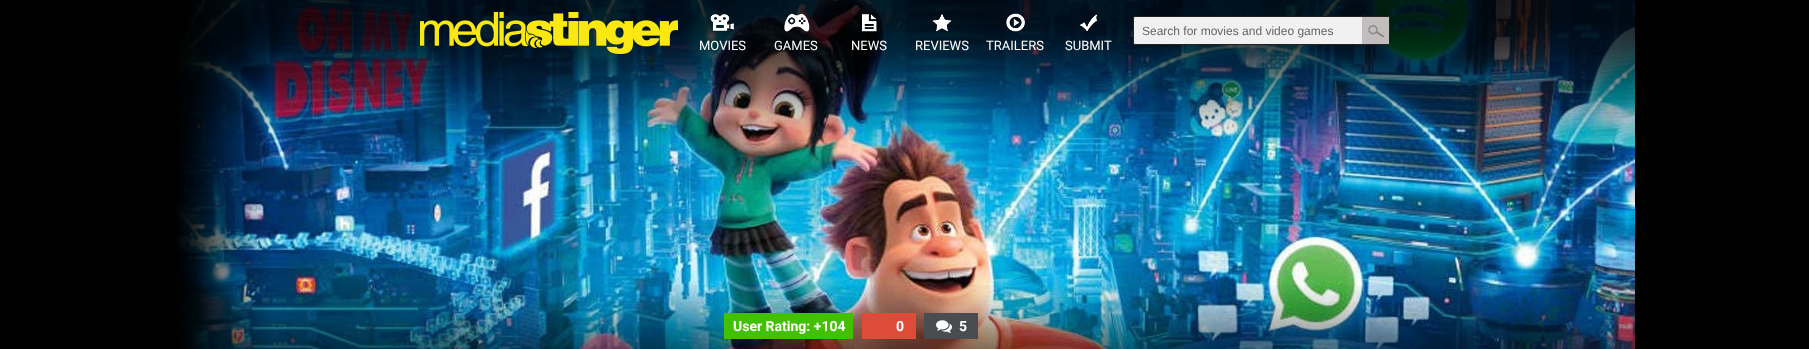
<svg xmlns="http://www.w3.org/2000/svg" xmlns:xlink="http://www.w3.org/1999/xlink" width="1809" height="349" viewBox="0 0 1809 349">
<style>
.cls-1{font:12px Liberation Sans;fill:#666666}
.cls-2{font:13px Roboto;fill:#ffffff}
.cls-3{font:bold 14px Roboto;fill:#ffffff}
</style>
<rect width="100%" height="100%" fill="#000000"/>
<image xlink:href="image8.png" x="175" y="0" width="1460" height="349"/>
<image xlink:href="image9.png" x="175" y="0" width="1460" height="141"/>
<image xlink:href="image0.png" x="420" y="12" width="258" height="42"/>
<rect fill="#f1f1f1" stroke="#222222" x="1133.5" y="16.5" width="256" height="28" rx="1.5"/>
<image xlink:href="image1.png" x="1362" y="17" width="27" height="27"/>
<image xlink:href="image2.png" x="710" y="14" width="25" height="18"/>
<image xlink:href="image3.png" x="784" y="13" width="26" height="19"/>
<image xlink:href="image4.png" x="861" y="14" width="16" height="18"/>
<image xlink:href="image5.png" x="932" y="14" width="20" height="18"/>
<image xlink:href="image6.png" x="1006" y="13" width="20" height="19"/>
<image xlink:href="image7.png" x="1080" y="14" width="17" height="18"/>
<image xlink:href="image10.png" x="175" y="285" width="1460" height="64"/>
<image xlink:href="image11.png" x="175" y="0" width="94" height="349"/>
<rect fill="#41c102" x="724" y="313" width="129" height="26"/>
<rect fill="#dd4b39" x="862" y="313" width="54" height="26"/>
<rect fill="#494d50" x="924" y="313" width="54" height="26"/>
<image xlink:href="image12.png" x="936" y="320" width="16" height="13"/>
<text class="cls-1" x="1142" y="35">Search for movies and video games</text>
<text class="cls-2" x="699" y="50">MOVIES</text>
<text class="cls-2" x="774" y="50">GAMES</text>
<text class="cls-2" x="851" y="50">NEWS</text>
<text class="cls-2" x="915" y="50">REVIEWS</text>
<text class="cls-2" x="986" y="50">TRAILERS</text>
<text class="cls-2" x="1065" y="50">SUBMIT</text>
<text class="cls-3" x="733" y="331">User Rating: +104</text>
<text class="cls-3" x="896" y="331">0</text>
<text class="cls-3" x="959" y="331">5</text>
</svg>
